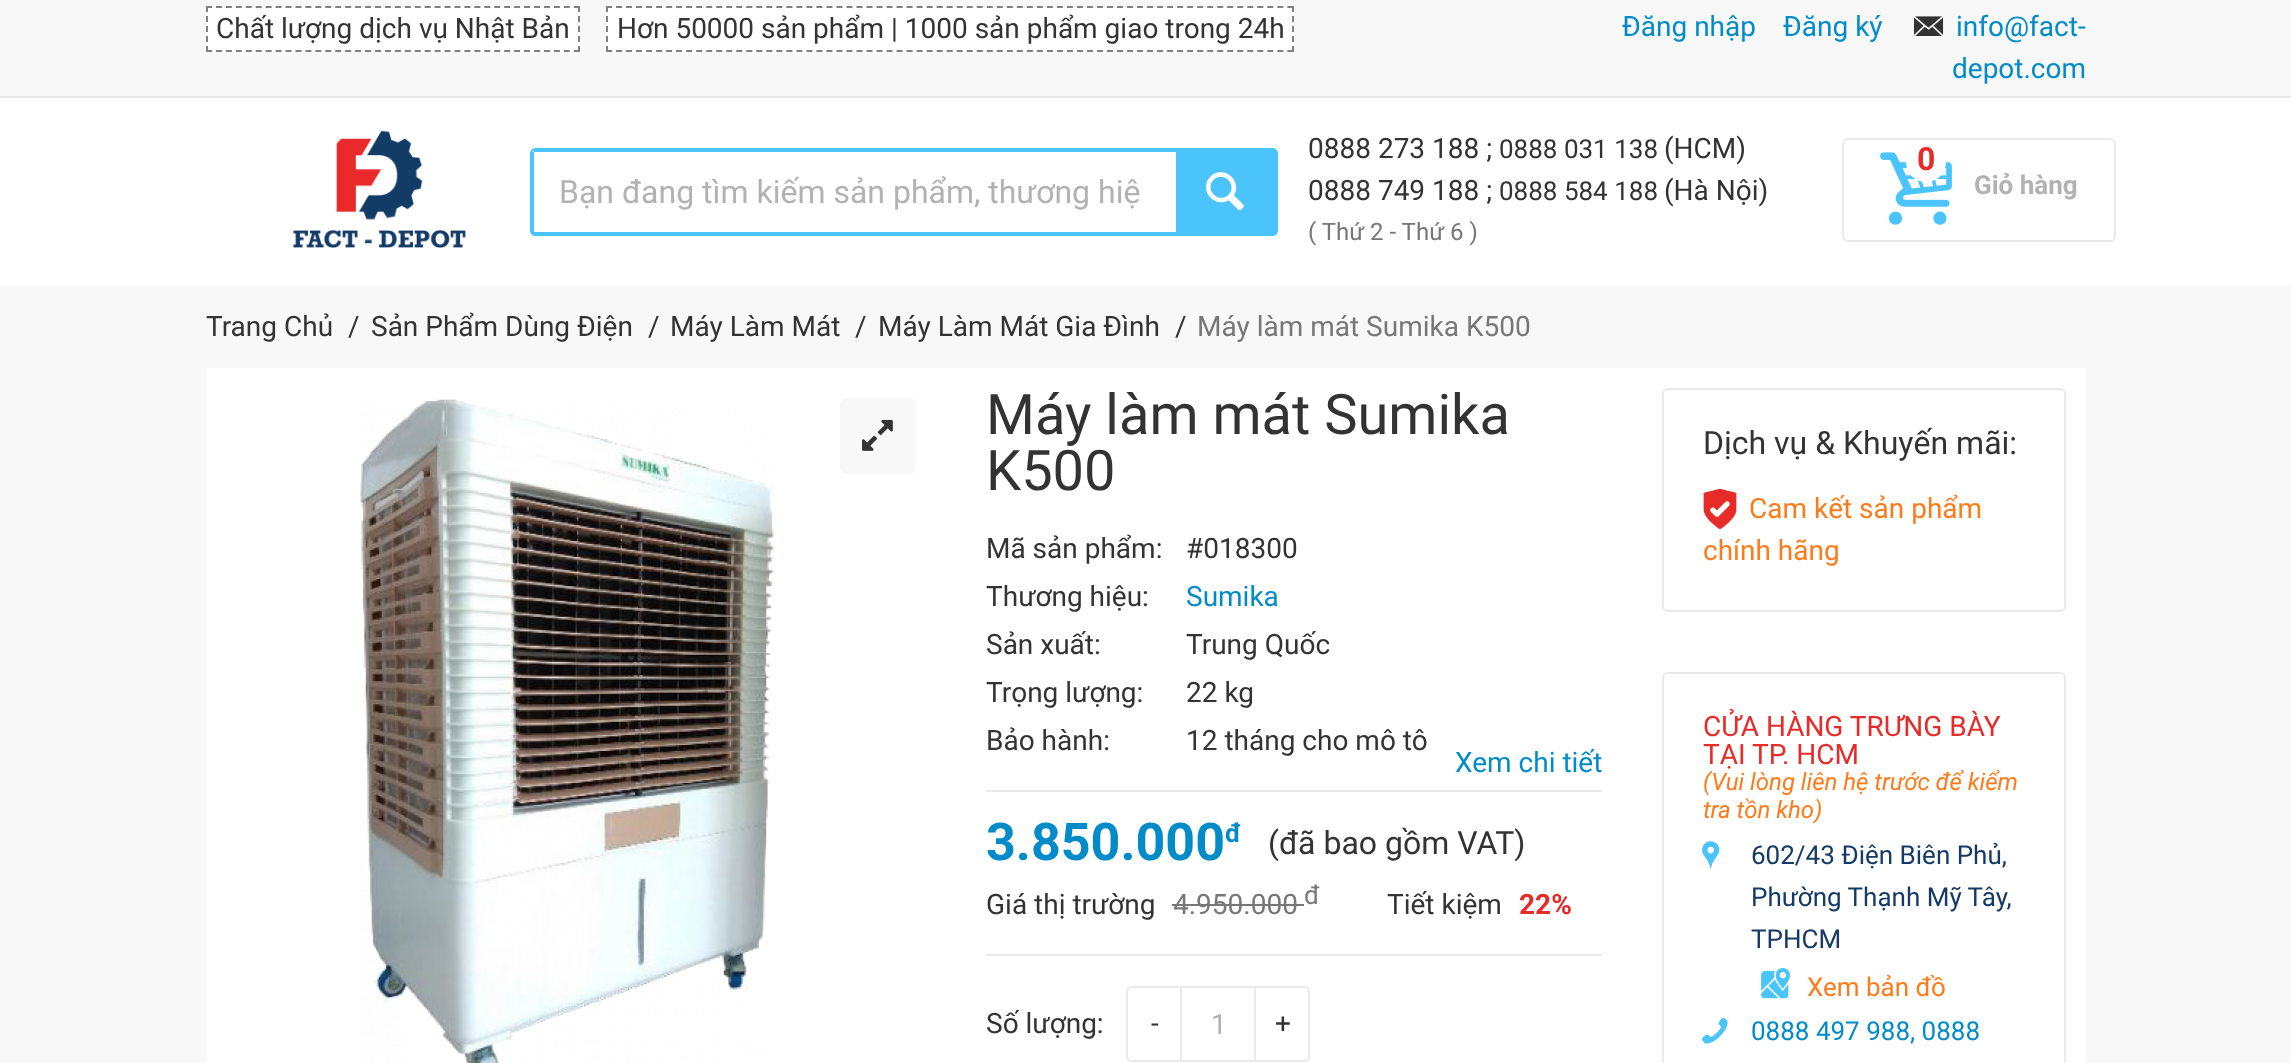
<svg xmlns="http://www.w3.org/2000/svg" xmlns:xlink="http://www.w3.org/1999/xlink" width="2291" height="1063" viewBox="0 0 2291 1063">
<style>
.cls-1{font:28px Roboto;fill:#333333}
.cls-2{font:28px Roboto;fill:#018bc8}
.cls-3{font:32px Roboto;fill:#b2b2b2}
.cls-4{font:26px Roboto;fill:#333333}
.cls-5{font:24px Roboto;fill:#777777}
.cls-6{font:bold 32px Roboto;fill:#e72b29}
.cls-7{font:bold 26px Roboto;fill:#b2b2b2}
.cls-8{font:28px Roboto;fill:#777777}
.cls-9{font:56px Roboto;fill:#333333}
.cls-10{font:bold 52px Roboto;fill:#018bc8}
.cls-11{font:bold 26px Roboto;fill:#018bc8}
.cls-12{font:32px Roboto;fill:#333333}
.cls-13{font:26px Roboto;fill:#777777}
.cls-14{font:bold 28px Roboto;fill:#e72b29}
.cls-15{font:28px Roboto;fill:#b2b2b2}
.cls-16{font:28px Roboto;fill:#ff7b1a}
.cls-17{font:28px Roboto;fill:#e72b29}
.cls-18{font:italic 24px Roboto;fill:#ff7b1a}
.cls-19{font:26px Roboto;fill:#143a65}
.cls-20{font:26px Roboto;fill:#ff7b1a}
.cls-21{font:26px Roboto;fill:#018bc8}
</style>
<rect width="100%" height="100%" fill="#ffffff"/>
<rect fill="#f8f8f8" x="0" y="0" width="2291" height="96"/>
<rect fill="#ffffff" x="206" y="6" width="374" height="46"/>
<path fill="none" stroke="#808080" stroke-width="2" stroke-dasharray="6 3.94" d="M206 7H580"/>
<path fill="none" stroke="#808080" stroke-width="2" stroke-dasharray="6 4" d="M579 6V52"/>
<path fill="none" stroke="#808080" stroke-width="2" stroke-dasharray="6 3.94" d="M206 51H580"/>
<path fill="none" stroke="#808080" stroke-width="2" stroke-dasharray="6 4" d="M207 6V52"/>
<rect fill="#ffffff" x="606" y="6" width="688" height="46"/>
<path fill="none" stroke="#808080" stroke-width="2" stroke-dasharray="6 4.02" d="M606 7H1294"/>
<path fill="none" stroke="#808080" stroke-width="2" stroke-dasharray="6 4" d="M1293 6V52"/>
<path fill="none" stroke="#808080" stroke-width="2" stroke-dasharray="6 4.02" d="M606 51H1294"/>
<path fill="none" stroke="#808080" stroke-width="2" stroke-dasharray="6 4" d="M607 6V52"/>
<image xlink:href="image0.png" x="1914" y="16" width="30" height="20"/>
<rect fill="#eaeaea" x="0" y="96" width="2291" height="2"/>
<image xlink:href="image1.png" x="293" y="130" width="173" height="118"/>
<path fill="none" stroke="#4ac4fa" stroke-width="2" d="M536 149H1177V235H536C533 235 531 233 531 230V154C531 151 533 149 536 149Z"/>
<rect fill="#4ac4fa" x="534" y="150" width="644" height="2"/>
<rect fill="#4ac4fa" x="534" y="232" width="644" height="2"/>
<rect fill="#4ac4fa" x="532" y="152" width="2" height="82"/>
<path fill="#4ac4fa" d="M1178 148H1272C1275.5 148 1278 150.5 1278 154V230C1278 233.5 1275.5 236 1272 236H1178Z"/>
<path fill="#4ac4fa" fill-rule="evenodd" d="M1178 148H1272C1275 148 1278 151 1278 154V230C1278 233 1275 236 1272 236H1178ZM1178 152H1272C1273 152 1274 153 1274 154V230C1274 231 1273 232 1272 232H1178Z"/>
<image xlink:href="image2.png" x="1206" y="172" width="38" height="39"/>
<rect fill="none" stroke="#eaeaea" stroke-width="2" x="1843" y="139" width="272" height="102" rx="5"/>
<image xlink:href="image3.png" x="1880" y="152" width="72" height="73"/>
<circle fill="#ffffff" cx="1926" cy="162" r="20"/>
<rect fill="#f8f8f8" x="0" y="286" width="2291" height="777"/>
<rect fill="#ffffff" x="206" y="368" width="1880" height="695"/>
<image xlink:href="image4.png" x="360" y="399" width="415" height="664"/>
<rect fill="#f8f8f8" x="840" y="398" width="76" height="76" rx="6"/>
<image xlink:href="image5.png" x="862" y="419" width="31" height="32"/>
<rect fill="#eaeaea" x="986" y="790" width="616" height="2"/>
<rect fill="#777777" x="1172" y="904" width="132" height="2"/>
<rect fill="#eaeaea" x="986" y="954" width="616" height="2"/>
<path fill="none" stroke="#eaeaea" stroke-width="2" d="M1132 987H1181V1061H1132C1129 1061 1127 1059 1127 1056V992C1127 989 1129 987 1132 987Z"/>
<rect fill="#eaeaea" x="1182" y="986" width="72" height="2"/>
<rect fill="#eaeaea" x="1182" y="1060" width="72" height="2"/>
<path fill="none" stroke="#eaeaea" stroke-width="2" d="M1255 987H1304C1307 987 1309 989 1309 992V1056C1309 1059 1307 1061 1304 1061H1255Z"/>
<rect fill="none" stroke="#eaeaea" stroke-width="2" x="1663" y="389" width="402" height="222" rx="5"/>
<image xlink:href="image6.png" x="1703" y="488" width="34" height="42"/>
<rect fill="none" stroke="#eaeaea" stroke-width="2" x="1663" y="673" width="402" height="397" rx="5"/>
<image xlink:href="image7.png" x="1702" y="841" width="18" height="28"/>
<image xlink:href="image8.png" x="1761" y="967" width="29" height="32"/>
<image xlink:href="image9.png" x="1702" y="1018" width="26" height="26"/>
<text class="cls-1" x="216" y="38">Chất lượng dịch vụ Nhật Bản</text>
<text class="cls-1" x="617" y="38">Hơn 50000 sản phẩm | 1000 sản phẩm giao trong 24h</text>
<text class="cls-2" x="1622" y="36">Đăng nhập</text>
<text class="cls-2" x="1783" y="36">Đăng ký</text>
<text class="cls-2" x="1956" y="36">info@fact-</text>
<text class="cls-2" x="1952" y="78">depot.com</text>
<text class="cls-3" x="559" y="203">Bạn đang tìm kiếm sản phẩm, thương hiệ</text>
<text class="cls-1" x="1308" y="158">0888 273 188 ;</text>
<text class="cls-4" x="1499" y="158">0888 031 138</text>
<text class="cls-1" x="1664" y="158">(HCM)</text>
<text class="cls-1" x="1308" y="200">0888 749 188 ;</text>
<text class="cls-4" x="1499" y="200">0888 584 188</text>
<text class="cls-1" x="1664" y="200">(Hà Nội)</text>
<text class="cls-5" x="1308" y="240">( Thứ 2 - Thứ 6 )</text>
<text class="cls-6" x="1917" y="170">0</text>
<text class="cls-7" x="1974" y="194">Giỏ hàng</text>
<text class="cls-1" x="206" y="336">Trang Chủ</text>
<text class="cls-1" x="348" y="336">/</text>
<text class="cls-1" x="371" y="336">Sản Phẩm Dùng Điện</text>
<text class="cls-1" x="648" y="336">/</text>
<text class="cls-1" x="670" y="336">Máy Làm Mát</text>
<text class="cls-1" x="855" y="336">/</text>
<text class="cls-1" x="878" y="336">Máy Làm Mát Gia Đình</text>
<text class="cls-1" x="1175" y="336">/</text>
<text class="cls-8" x="1197" y="336">Máy làm mát Sumika K500</text>
<text class="cls-9"><tspan x="986" y="434">Máy làm mát Sumika</tspan><tspan x="986" y="490">K500</tspan></text>
<text class="cls-1" x="986" y="558">Mã sản phẩm:</text>
<text class="cls-1" x="1186" y="558">#018300</text>
<text class="cls-1" x="986" y="606">Thương hiệu:</text>
<text class="cls-2" x="1186" y="606">Sumika</text>
<text class="cls-1" x="986" y="654">Sản xuất:</text>
<text class="cls-1" x="1186" y="654">Trung Quốc</text>
<text class="cls-1" x="986" y="702">Trọng lượng:</text>
<text class="cls-1" x="1186" y="702">22 kg</text>
<text class="cls-1" x="986" y="750">Bảo hành:</text>
<text class="cls-1" x="1186" y="750">12 tháng cho mô tô</text>
<text class="cls-2" x="1455" y="772">Xem chi tiết</text>
<text class="cls-10" x="986" y="860">3.850.000</text>
<text class="cls-11" x="1225" y="842">đ</text>
<text class="cls-12" x="1268" y="854">(đã bao gồm VAT)</text>
<text class="cls-1" x="986" y="914">Giá thị trường</text>
<text class="cls-8" x="1173" y="914">4.950.000</text>
<text class="cls-13" x="1304" y="904">đ</text>
<text class="cls-1" x="1387" y="914">Tiết kiệm</text>
<text class="cls-14" x="1519" y="914">22%</text>
<text class="cls-1" x="986" y="1033">Số lượng:</text>
<text class="cls-1" x="1151" y="1033">-</text>
<text class="cls-15" x="1211" y="1034">1</text>
<text class="cls-1" x="1275" y="1033">+</text>
<text class="cls-12" x="1703" y="454">Dịch vụ &amp; Khuyến mãi:</text>
<text class="cls-16" x="1749" y="518">Cam kết sản phẩm</text>
<text class="cls-16" x="1703" y="560">chính hãng</text>
<text class="cls-17"><tspan x="1703" y="736">CỬA HÀNG TRƯNG BÀY</tspan><tspan x="1703" y="764">TẠI TP. HCM</tspan></text>
<text class="cls-18"><tspan x="1703" y="790">(Vui lòng liên hệ trước để kiểm</tspan><tspan x="1703" y="818">tra tồn kho)</tspan></text>
<text class="cls-19"><tspan x="1751" y="864">602/43 Điện Biên Phủ,</tspan><tspan x="1751" y="906">Phường Thạnh Mỹ Tây,</tspan><tspan x="1751" y="948">TPHCM</tspan></text>
<text class="cls-20" x="1807" y="996">Xem bản đồ</text>
<text class="cls-21" x="1751" y="1040">0888 497 988, 0888</text>
</svg>
